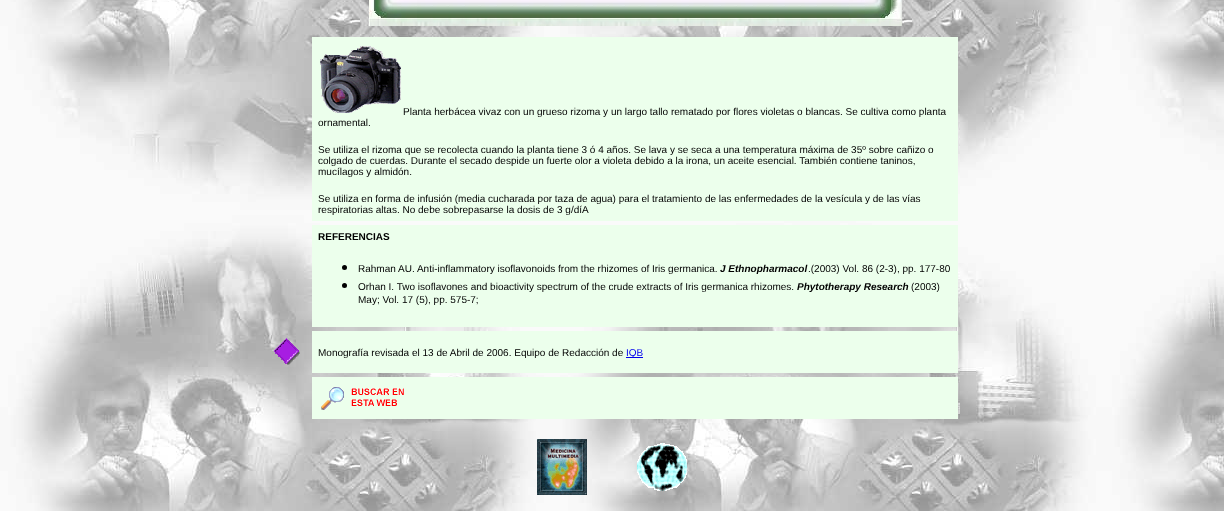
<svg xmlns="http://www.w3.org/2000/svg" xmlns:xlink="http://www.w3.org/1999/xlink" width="1224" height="511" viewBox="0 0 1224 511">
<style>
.cls-1{font:10px Liberation Sans;fill:#000000}
.cls-2{font:bold 10px Liberation Sans;fill:#000000}
.cls-3{font:italic bold 10px Liberation Sans;fill:#000000}
.cls-4{font:10px Liberation Sans;fill:#0000ee}
</style>
<rect width="100%" height="100%" fill="#ffffff"/>
<image xlink:href="image0.png" x="0" y="0" width="1224" height="511"/>
<image xlink:href="image1.png" x="369" y="0" width="533" height="26"/>
<rect fill="#ecffec" x="312" y="37" width="646" height="184"/>
<image xlink:href="image2.png" x="320" y="46" width="81" height="67"/>
<rect fill="#ecffec" x="312" y="225" width="646" height="102"/>
<circle fill="#000000" cx="344.5" cy="267.5" r="2.5"/>
<circle fill="#000000" cx="344.5" cy="285.5" r="2.5"/>
<image xlink:href="image3.png" x="274" y="338" width="26" height="28"/>
<rect fill="#ecffec" x="312" y="331" width="646" height="42"/>
<rect fill="#0000ee" x="626" y="357" width="17" height="1"/>
<rect fill="#ecffec" x="312" y="377" width="646" height="42"/>
<image xlink:href="image4.png" x="321" y="387" width="83" height="23"/>
<image xlink:href="image5.png" x="537" y="439" width="50" height="56"/>
<image xlink:href="image6.png" x="637" y="443" width="50" height="48"/>
<text class="cls-1" x="403" y="115">Planta herbácea vivaz con un grueso rizoma y un largo tallo rematado por flores violetas o blancas. Se cultiva como planta</text>
<text class="cls-1" x="318" y="126">ornamental.</text>
<text class="cls-1"><tspan x="318" y="153">Se utiliza el rizoma que se recolecta cuando la planta tiene 3 ó 4 años. Se lava y se seca a una temperatura máxima de 35º sobre cañizo o</tspan><tspan x="318" y="164">colgado de cuerdas. Durante el secado despide un fuerte olor a violeta debido a la irona, un aceite esencial. También contiene taninos,</tspan><tspan x="318" y="175">mucílagos y almidón.</tspan></text>
<text class="cls-1"><tspan x="318" y="202">Se utiliza en forma de infusión (media cucharada por taza de agua) para el tratamiento de las enfermedades de la vesícula y de las vías</tspan><tspan x="318" y="213">respiratorias altas. No debe sobrepasarse la dosis de 3 g/díA</tspan></text>
<text class="cls-2" x="318" y="240">REFERENCIAS</text>
<text class="cls-1" x="358" y="272">Rahman AU. Anti-inflammatory isoflavonoids from the rhizomes of Iris germanica.</text>
<text class="cls-3" x="720" y="272">J Ethnopharmacol</text>
<text class="cls-1" x="808" y="272">.(2003) Vol. 86 (2-3), pp. 177-80</text>
<text class="cls-1" x="358" y="290">Orhan I. Two isoflavones and bioactivity spectrum of the crude extracts of Iris germanica rhizomes.</text>
<text class="cls-3" x="797" y="290">Phytotherapy Research</text>
<text class="cls-1" x="911" y="290">(2003)</text>
<text class="cls-1" x="358" y="303">May; Vol. 17 (5), pp. 575-7;</text>
<text class="cls-1" x="318" y="356">Monografía revisada el 13 de Abril de 2006. Equipo de Redacción de</text>
<text class="cls-4" x="626" y="356">IQB</text>
</svg>
